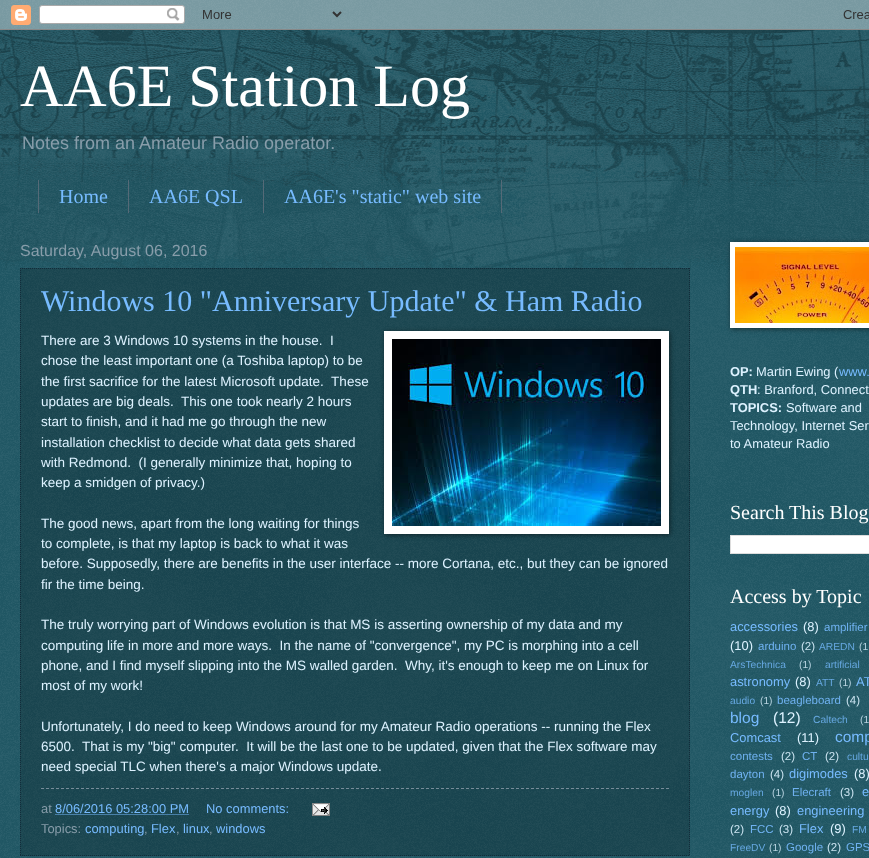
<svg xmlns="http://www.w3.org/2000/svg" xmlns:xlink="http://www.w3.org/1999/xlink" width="869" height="858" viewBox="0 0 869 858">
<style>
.cls-1{font:60px Liberation Serif;fill:#ffffff}
.cls-2{font:18px Liberation Sans;fill:#889daa}
.cls-3{font:20px Liberation Serif;fill:#77bbff}
.cls-4{font:16px Liberation Sans;fill:#889daa}
.cls-5{font:30px Liberation Serif;fill:#77bbff}
.cls-6{font:13.5px Liberation Sans;fill:#ddf2ff}
.cls-7{font:12.9px Liberation Sans;fill:#889daa}
.cls-8{font:12.9px Liberation Sans;fill:#77bbff}
.cls-9{font:bold 12.9px Liberation Sans;fill:#ddf2ff}
.cls-10{font:12.9px Liberation Sans;fill:#ddf2ff}
.cls-11{font:20px Liberation Serif;fill:#ffffff}
.cls-12{font:11.5px Liberation Sans;fill:#6fb1f0}
.cls-13{font:11.5px Liberation Sans;fill:#cae3f0}
.cls-14{font:10.25px Liberation Sans;fill:#66a8e1}
.cls-15{font:10.25px Liberation Sans;fill:#b8d4e1}
.cls-16{font:15.5px Liberation Sans;fill:#77bbff}
.cls-17{font:15.5px Liberation Sans;fill:#ddf2ff}
</style>
<rect width="100%" height="100%" fill="#003f4e"/>
<image xlink:href="image0.png" x="0" y="0" width="869" height="858"/>
<image xlink:href="image1.png" x="0" y="0" width="869" height="30"/>
<image xlink:href="image2.png" x="0" y="30" width="869" height="240"/>
<rect fill="#556a77" x="128" y="180" width="1" height="33"/>
<rect fill="#556a77" x="38" y="180" width="1" height="33"/>
<rect fill="#556a77" x="263" y="180" width="1" height="33"/>
<rect fill="#556a77" x="501" y="180" width="1" height="33"/>
<rect fill="#000000" fill-opacity="0.2" x="20" y="268" width="670" height="588"/>
<path fill="none" stroke="#132c3a" stroke-dasharray="1 1" d="M20 268.5H690"/>
<path fill="none" stroke="#132c3a" stroke-dasharray="1 1" d="M689.5 268V856"/>
<path fill="none" stroke="#132c3a" stroke-dasharray="1 1" d="M20 855.5H690"/>
<path fill="none" stroke="#132c3a" stroke-dasharray="1 1" d="M20.5 268V856"/>
<rect fill="#000000" fill-opacity="0.5" filter="blur(2.5px)" x="385" y="332" width="285" height="203"/>
<rect fill="#ffffff" x="384" y="331" width="285" height="203"/>
<image xlink:href="image3.png" x="392" y="339" width="269" height="187"/>
<path fill="none" stroke="#778c99" stroke-dasharray="3 2" d="M41 788.5H669"/>
<path fill="none" stroke="#77bbff" stroke-dasharray="1 1" d="M55.5 814.5H189"/>
<image xlink:href="image4.png" x="312" y="803" width="18" height="13"/>
<rect fill="#000000" fill-opacity="0.5" filter="blur(2.5px)" x="731" y="243" width="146" height="86"/>
<rect fill="#ffffff" x="730" y="242" width="139" height="86"/>
<image xlink:href="image5.png" x="735" y="247" width="134" height="76"/>
<rect fill="#ffffff" stroke="#dddddd" x="730.5" y="535.5" width="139" height="18"/>
<text class="cls-1" x="20" y="106">AA6E Station Log</text>
<text class="cls-2" x="22" y="149">Notes from an Amateur Radio operator.</text>
<text class="cls-3" x="59" y="203">Home</text>
<text class="cls-3" x="149" y="203">AA6E QSL</text>
<text class="cls-3" x="284" y="203">AA6E's "static" web site</text>
<text class="cls-4" x="20" y="256">Saturday, August 06, 2016</text>
<text class="cls-5" x="41" y="311">Windows 10 "Anniversary Update" &amp; Ham Radio</text>
<text class="cls-6" xml:space="preserve"><tspan x="41" y="345">There are 3 Windows 10 systems in the house.  I</tspan><tspan x="41" y="365">chose the least important one (a Toshiba laptop) to be</tspan><tspan x="41" y="386">the first sacrifice for the latest Microsoft update.  These</tspan><tspan x="41" y="406">updates are big deals.  This one took nearly 2 hours</tspan><tspan x="41" y="426">start to finish, and it had me go through the new</tspan><tspan x="41" y="447">installation checklist to decide what data gets shared</tspan><tspan x="41" y="467">with Redmond.  (I generally minimize that, hoping to</tspan><tspan x="41" y="487">keep a smidgen of privacy.)</tspan></text>
<text class="cls-6"><tspan x="41" y="528">The good news, apart from the long waiting for things</tspan><tspan x="41" y="548">to complete, is that my laptop is back to what it was</tspan><tspan x="41" y="568">before. Supposedly, there are benefits in the user interface -- more Cortana, etc., but they can be ignored</tspan><tspan x="41" y="589">fir the time being.</tspan></text>
<text class="cls-6" xml:space="preserve"><tspan x="41" y="629">The truly worrying part of Windows evolution is that MS is asserting ownership of my data and my</tspan><tspan x="41" y="650">computing life in more and more ways.  In the name of "convergence", my PC is morphing into a cell</tspan><tspan x="41" y="670">phone, and I find myself slipping into the MS walled garden.  Why, it's enough to keep me on Linux for</tspan><tspan x="41" y="690">most of my work!</tspan></text>
<text class="cls-6" xml:space="preserve"><tspan x="41" y="731">Unfortunately, I do need to keep Windows around for my Amateur Radio operations -- running the Flex</tspan><tspan x="41" y="751">6500.  That is my "big" computer.  It will be the last one to be updated, given that the Flex software may</tspan><tspan x="41" y="771">need special TLC when there's a major Windows update.</tspan></text>
<text class="cls-7" x="41" y="813">at</text>
<text class="cls-8" x="55" y="813">8/06/2016 05:28:00 PM</text>
<text class="cls-8" x="206" y="813">No comments:</text>
<text class="cls-7" x="41" y="833">Topics:</text>
<text class="cls-8" x="85" y="833">computing</text>
<text class="cls-7" x="144" y="833">,</text>
<text class="cls-8" x="151" y="833">Flex</text>
<text class="cls-7" x="176" y="833">,</text>
<text class="cls-8" x="183" y="833">linux</text>
<text class="cls-7" x="209" y="833">,</text>
<text class="cls-8" x="216" y="833">windows</text>
<text class="cls-9" x="730" y="376">OP:</text>
<text class="cls-10" x="756" y="376">Martin Ewing (</text>
<text class="cls-8" x="839" y="376">www.</text>
<text class="cls-9" x="730" y="394">QTH</text>
<text class="cls-10" x="757" y="394">: Branford, Connect</text>
<text class="cls-9" x="730" y="412">TOPICS:</text>
<text class="cls-10" x="786" y="412">Software and</text>
<text class="cls-10"><tspan x="730" y="430">Technology, Internet Ser</tspan><tspan x="730" y="448">to Amateur Radio</tspan></text>
<text class="cls-11" x="730" y="519">Search This Blog</text>
<text class="cls-11" x="730" y="603">Access by Topic</text>
<text class="cls-8" x="730" y="631">accessories</text>
<text class="cls-10" x="803" y="631">(8)</text>
<text class="cls-12" x="824" y="631">amplifier</text>
<text class="cls-10" x="730" y="650">(10)</text>
<text class="cls-12" x="758" y="650">arduino</text>
<text class="cls-13" x="801" y="650">(2)</text>
<text class="cls-14" x="819" y="650">AREDN</text>
<text class="cls-15" x="859" y="650">(1</text>
<text class="cls-14" x="730" y="668">ArsTechnica</text>
<text class="cls-15" x="799" y="668">(1)</text>
<text class="cls-14" x="825" y="668" word-spacing="10">artificial</text>
<text class="cls-8" x="730" y="686">astronomy</text>
<text class="cls-10" x="795" y="686">(8)</text>
<text class="cls-14" x="816" y="686">ATT</text>
<text class="cls-15" x="839" y="686">(1)</text>
<text class="cls-8" x="856" y="686" word-spacing="1">AT</text>
<text class="cls-14" x="730" y="704">audio</text>
<text class="cls-15" x="760" y="704">(1)</text>
<text class="cls-12" x="777" y="704">beagleboard</text>
<text class="cls-13" x="846" y="704">(4)</text>
<text class="cls-16" x="730" y="723">blog</text>
<text class="cls-17" x="773" y="723">(12)</text>
<text class="cls-14" x="813" y="723">Caltech</text>
<text class="cls-15" x="860" y="723">(1</text>
<text class="cls-8" x="730" y="742">Comcast</text>
<text class="cls-10" x="797" y="742">(11)</text>
<text class="cls-16" x="835" y="742">comp</text>
<text class="cls-12" x="730" y="760">contests</text>
<text class="cls-13" x="781" y="760">(2)</text>
<text class="cls-12" x="802" y="760">CT</text>
<text class="cls-13" x="825" y="760">(2)</text>
<text class="cls-14" x="847" y="760">cultu</text>
<text class="cls-12" x="730" y="778">dayton</text>
<text class="cls-13" x="770" y="778">(4)</text>
<text class="cls-8" x="789" y="778">digimodes</text>
<text class="cls-10" x="854" y="778">(8)</text>
<text class="cls-14" x="730" y="796">moglen</text>
<text class="cls-15" x="772" y="796">(1)</text>
<text class="cls-12" x="792" y="796">Elecraft</text>
<text class="cls-13" x="840" y="796">(3)</text>
<text class="cls-8" x="862" y="796">e</text>
<text class="cls-8" x="730" y="815">energy</text>
<text class="cls-10" x="775" y="815">(8)</text>
<text class="cls-8" x="797" y="815">engineering</text>
<text class="cls-13" x="730" y="833">(2)</text>
<text class="cls-12" x="750" y="833">FCC</text>
<text class="cls-13" x="779" y="833">(3)</text>
<text class="cls-8" x="799" y="833">Flex</text>
<text class="cls-10" x="830" y="833">(9)</text>
<text class="cls-14" x="852" y="833">FM</text>
<text class="cls-14" x="730" y="851">FreeDV</text>
<text class="cls-15" x="769" y="851">(1)</text>
<text class="cls-12" x="786" y="851">Google</text>
<text class="cls-13" x="827" y="851">(2)</text>
<text class="cls-12" x="846" y="851">GPS</text>
</svg>
